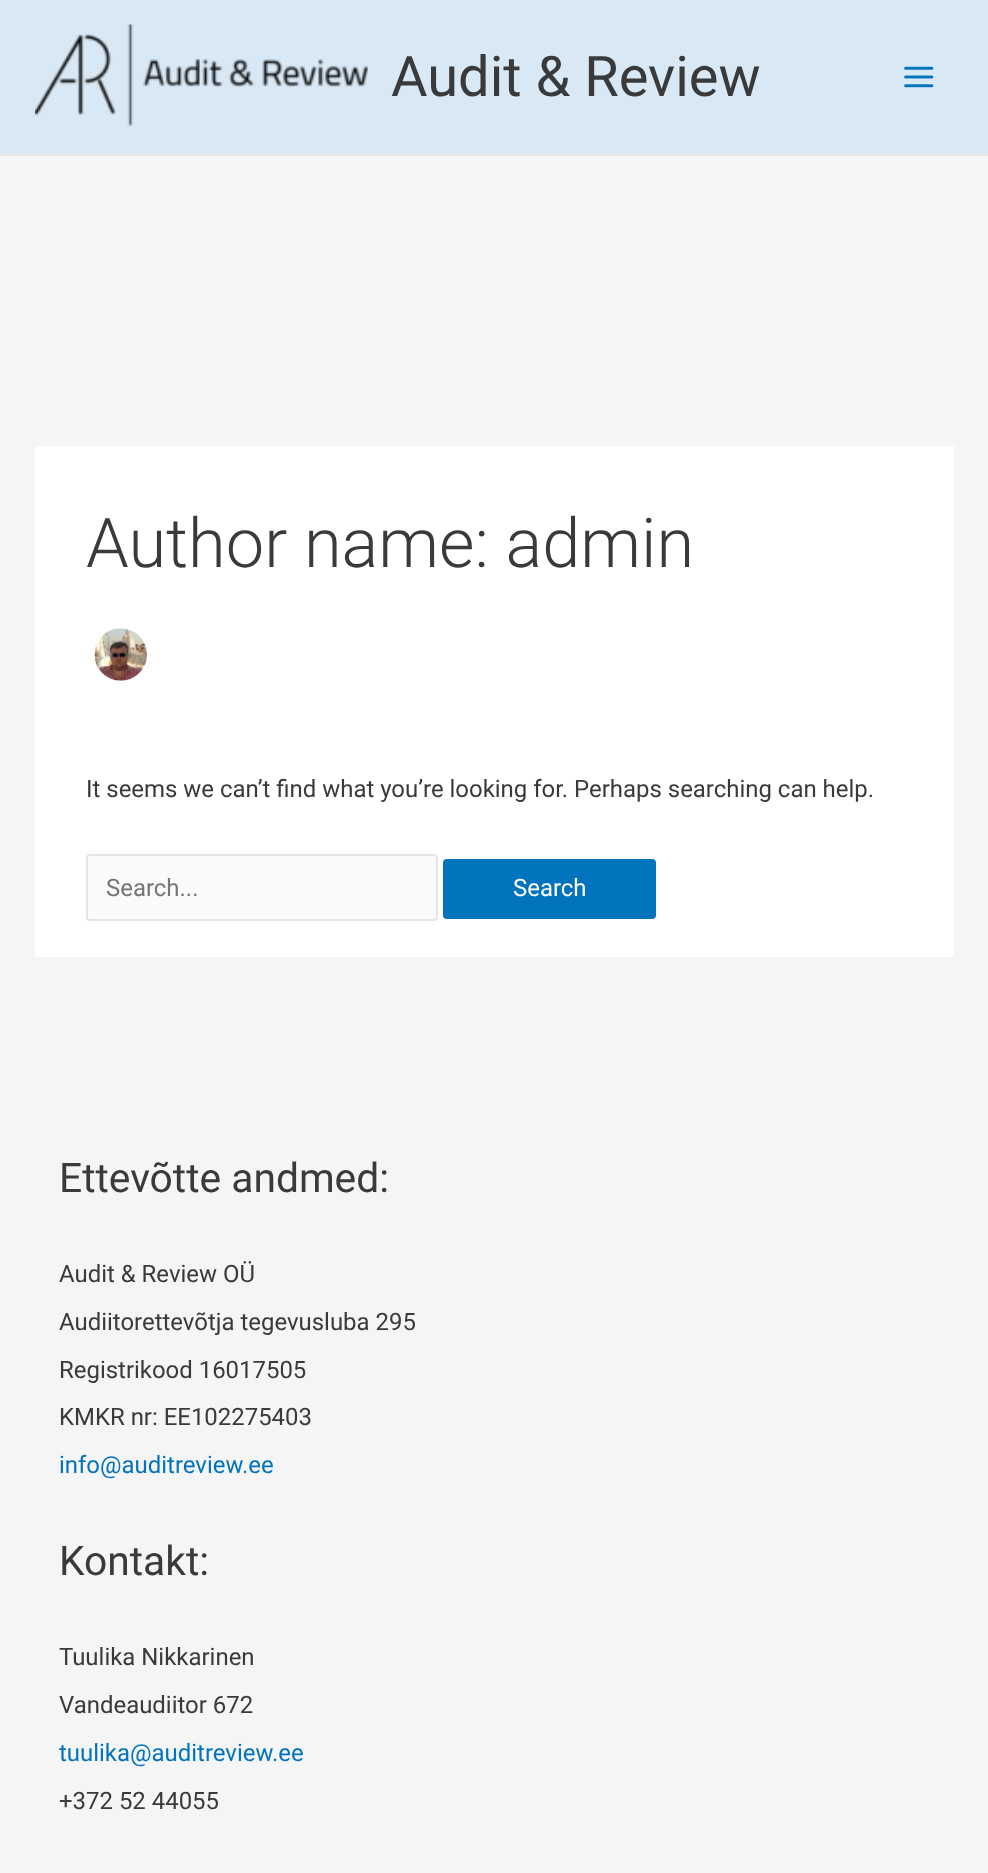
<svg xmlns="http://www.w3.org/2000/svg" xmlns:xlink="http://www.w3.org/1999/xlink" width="988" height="1873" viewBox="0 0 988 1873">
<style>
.cls-1{font:56px Roboto;fill:#3a3a3a}
.cls-2{font:300 68.5px Roboto;fill:#3a3a3a}
.cls-3{font:23.95px Roboto;fill:#3a3a3a}
.cls-4{font:23.95px Roboto;fill:#757575}
.cls-5{font:23.95px Roboto;fill:#ffffff}
.cls-6{font:40.75px Roboto;fill:#3a3a3a}
.cls-7{font:23.95px Roboto;fill:#0274be}
</style>
<rect width="100%" height="100%" fill="#f5f5f5"/>
<rect fill="#d8e8f5" x="0" y="0" width="988" height="154"/>
<rect fill="#e5e5e5" x="0" y="154" width="988" height="2"/>
<image xlink:href="image0.png" x="35" y="24" width="333" height="103"/>
<image xlink:href="image1.png" x="904" y="66" width="30" height="22"/>
<rect fill="#ffffff" x="35" y="446" width="919" height="511"/>
<image xlink:href="image2.png" x="94" y="628" width="53" height="53"/>
<rect fill="#fafafa" stroke="#e5e5e5" stroke-width="2" x="87" y="855" width="350" height="65" rx="3"/>
<rect fill="#0274be" x="443" y="859" width="213" height="60" rx="4"/>
<text class="cls-1" x="391" y="96">Audit &amp; Review</text>
<text class="cls-2" x="86" y="567">Author name: admin</text>
<text class="cls-3" x="86" y="797">It seems we can’t find what you’re looking for. Perhaps searching can help.</text>
<text class="cls-4" x="106" y="896">Search...</text>
<text class="cls-5" x="513" y="896">Search</text>
<text class="cls-6" x="59" y="1192">Ettevõtte andmed:</text>
<text class="cls-3" x="59" y="1282">Audit &amp; Review OÜ</text>
<text class="cls-3" x="59" y="1330">Audiitorettevõtja tegevusluba 295</text>
<text class="cls-3"><tspan x="59" y="1378">Registrikood 16017505</tspan><tspan x="59" y="1425">KMKR nr: EE102275403</tspan></text>
<text class="cls-7" x="59" y="1473">info@auditreview.ee</text>
<text class="cls-6" x="59" y="1575">Kontakt:</text>
<text class="cls-3" x="59" y="1665">Tuulika Nikkarinen</text>
<text class="cls-3" x="59" y="1713">Vandeaudiitor 672</text>
<text class="cls-7" x="59" y="1761">tuulika@auditreview.ee</text>
<text class="cls-3" x="59" y="1809">+372 52 44055</text>
</svg>
